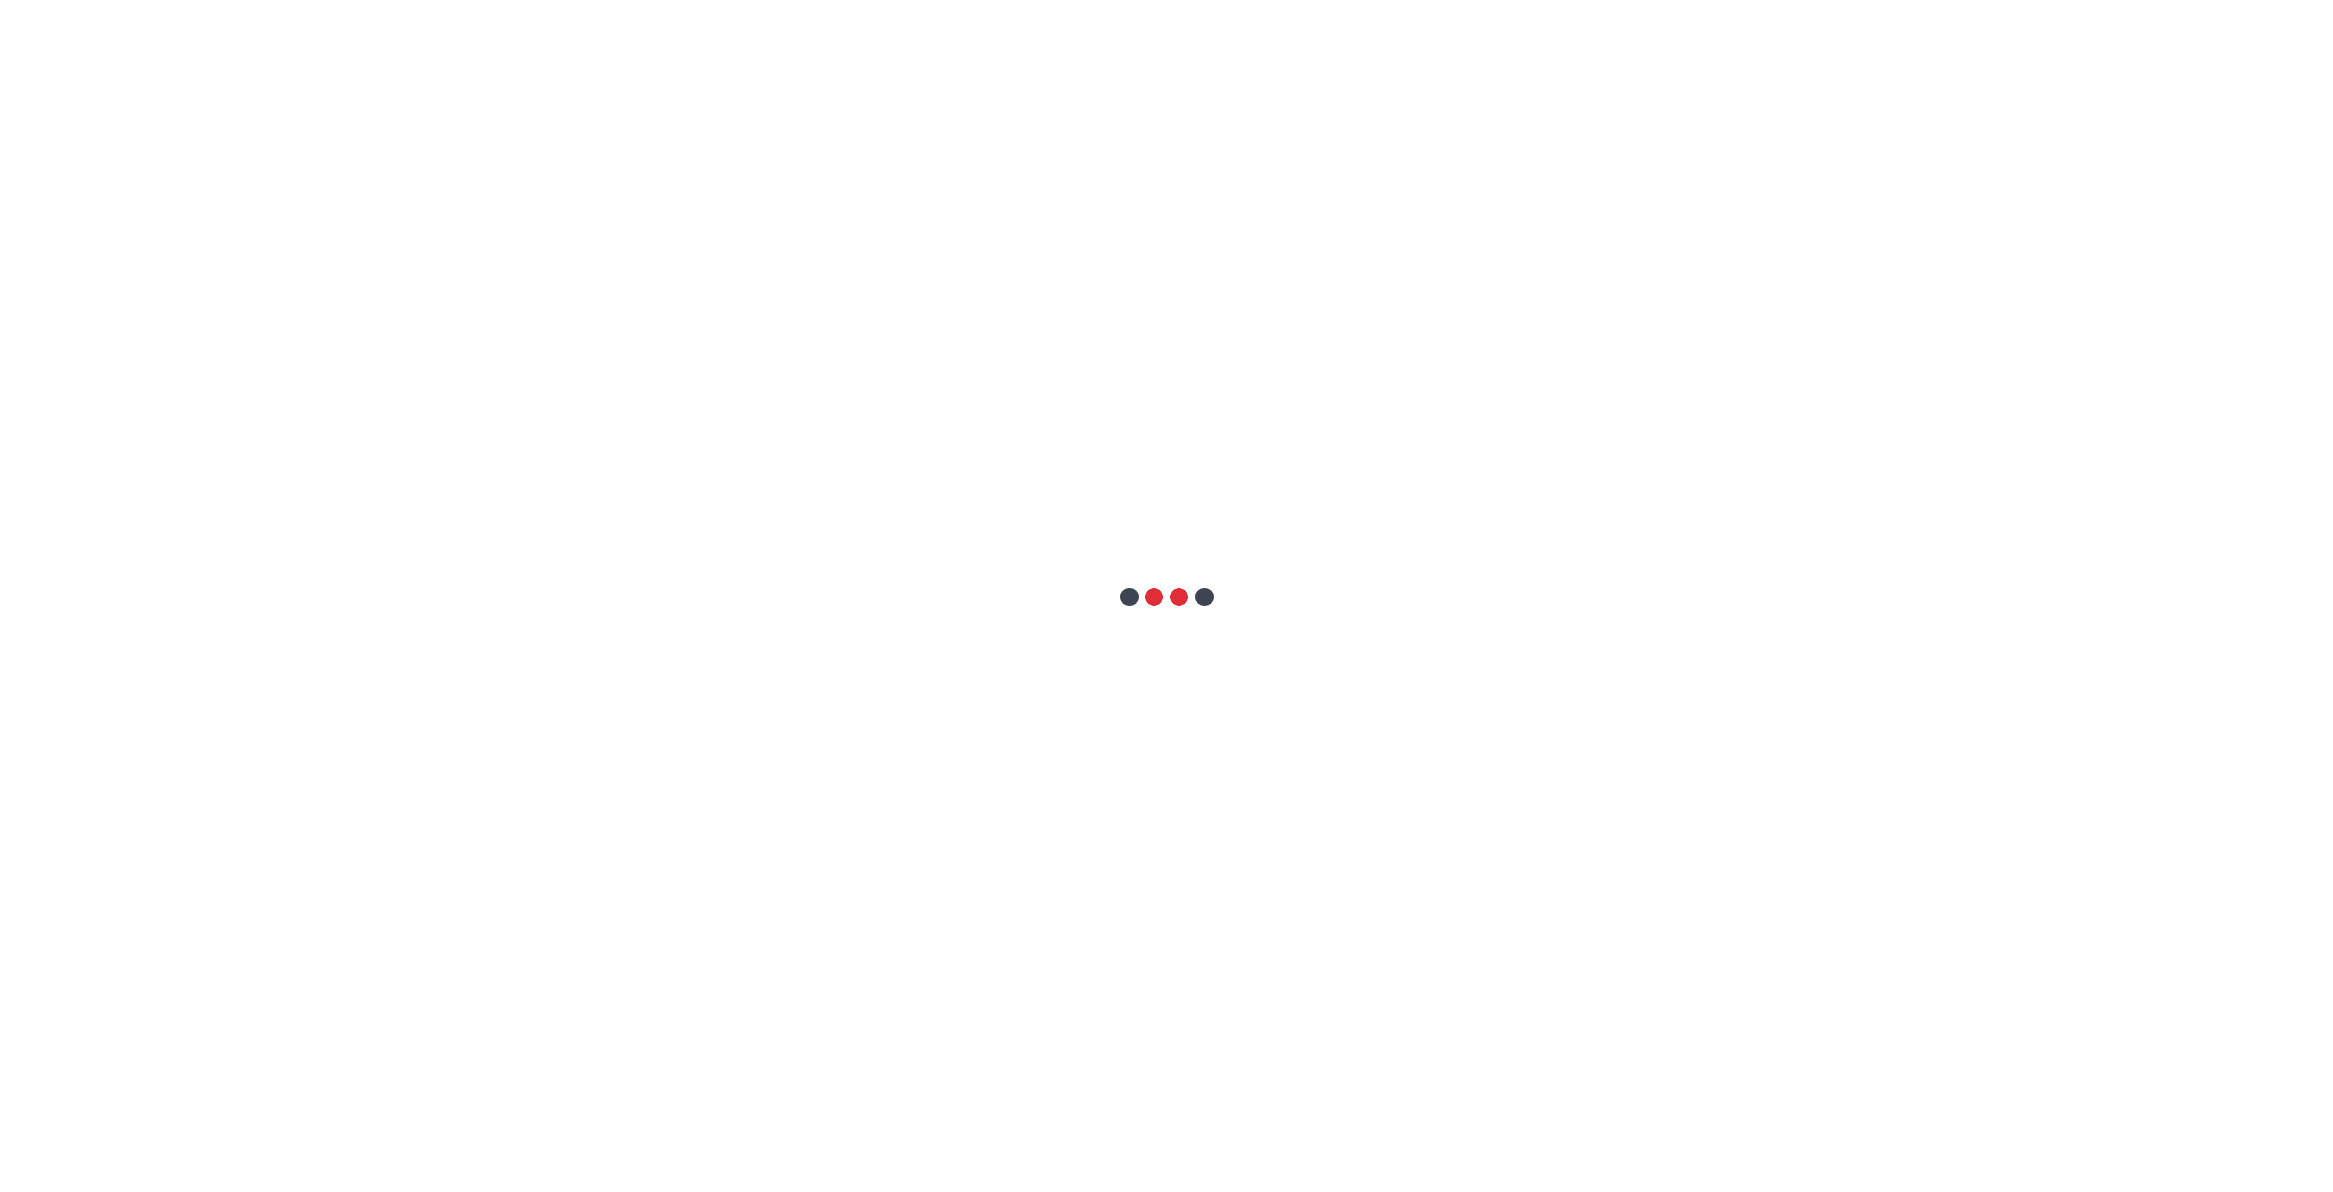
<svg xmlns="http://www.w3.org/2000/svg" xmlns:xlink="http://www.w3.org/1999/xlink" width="2333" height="1192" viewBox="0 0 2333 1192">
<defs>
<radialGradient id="g1" gradientUnits="userSpaceOnUse" cx="1179" cy="597" r="9"><stop offset="0.95" stop-color="#df2e38"/><stop offset="1" stop-color="#ffffff"/></radialGradient>
<radialGradient id="g2" gradientUnits="userSpaceOnUse" cx="1154" cy="597" r="9"><stop offset="0.95" stop-color="#df2e38"/><stop offset="1" stop-color="#ffffff"/></radialGradient>
</defs>
<rect width="100%" height="100%" fill="#ffffff"/>
<rect fill="url(#g1)" x="1170" y="588" width="18" height="18"/>
<rect fill="url(#g2)" x="1145" y="588" width="18" height="18"/>
<rect fill="#3d4452" x="1120" y="588" width="19" height="18" rx="9"/>
<rect fill="#3d4452" x="1195" y="588" width="19" height="18" rx="9"/>
</svg>
